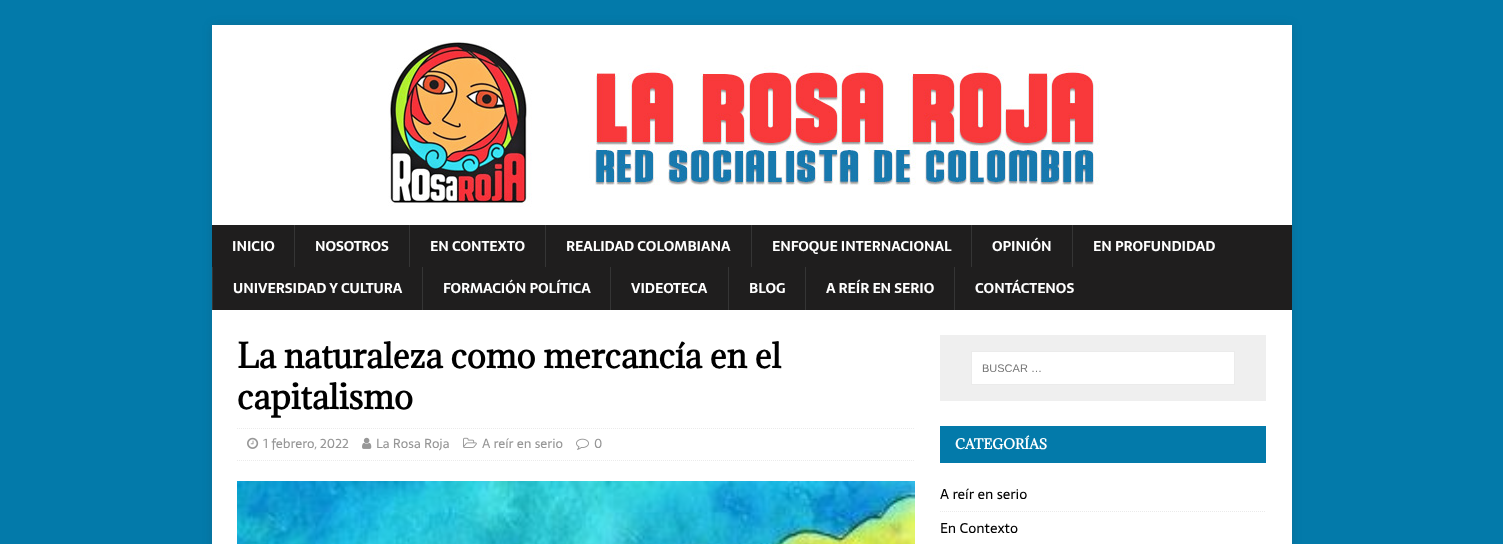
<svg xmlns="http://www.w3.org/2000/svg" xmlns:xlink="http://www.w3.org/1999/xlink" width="1503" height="544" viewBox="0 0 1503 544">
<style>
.cls-1{font:bold 14px Sarala;fill:#ffffff}
.cls-2{font:bold 32px Adamina;fill:#000000}
.cls-3{font:13px Sarala;fill:#979797}
.cls-4{font:11px Liberation Sans;fill:#757575}
.cls-5{font:bold 13px Adamina;fill:#ffffff}
.cls-6{font:14px Sarala;fill:#000000}
</style>
<rect width="100%" height="100%" fill="#037aaa"/>
<rect fill="#323232" fill-opacity="0.17" filter="blur(5px)" x="212" y="25" width="1080" height="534"/>
<rect fill="#ffffff" x="212" y="25" width="1080" height="200"/>
<image xlink:href="image0.png" x="388" y="41" width="712" height="166"/>
<rect fill="#1f1e1e" x="212" y="225" width="1080" height="85"/>
<rect fill="#353535" x="294" y="225" width="1" height="42"/>
<rect fill="#353535" x="409" y="225" width="1" height="42"/>
<rect fill="#353535" x="545" y="225" width="1" height="42"/>
<rect fill="#353535" x="751" y="225" width="1" height="42"/>
<rect fill="#353535" x="971" y="225" width="1" height="42"/>
<rect fill="#353535" x="1072" y="225" width="1" height="42"/>
<rect fill="#353535" x="212" y="267" width="1" height="43"/>
<rect fill="#353535" x="422" y="267" width="1" height="43"/>
<rect fill="#353535" x="610" y="267" width="1" height="43"/>
<rect fill="#353535" x="728" y="267" width="1" height="43"/>
<rect fill="#353535" x="805" y="267" width="1" height="43"/>
<rect fill="#353535" x="954" y="267" width="1" height="43"/>
<rect fill="#ffffff" x="212" y="310" width="1080" height="234"/>
<path fill="none" stroke="#ebebeb" stroke-dasharray="1 1" d="M237 428.5H915"/>
<path fill="none" stroke="#ebebeb" stroke-dasharray="1 1" d="M237 460.5H915"/>
<image xlink:href="image1.png" x="247" y="437" width="12" height="12"/>
<image xlink:href="image2.png" x="362" y="437" width="10" height="12"/>
<image xlink:href="image3.png" x="463" y="437" width="14" height="11"/>
<image xlink:href="image4.png" x="576" y="438" width="13" height="12"/>
<image xlink:href="image5.png" x="237" y="481" width="678" height="63"/>
<rect fill="#efefef" x="940" y="335" width="326" height="66"/>
<rect fill="#ffffff" stroke="#ebebeb" x="971.5" y="351.5" width="263" height="33"/>
<rect fill="#037aaa" x="940" y="426" width="326" height="37"/>
<path fill="none" stroke="#ebebeb" stroke-dasharray="1 1" d="M940 511.5H1266"/>
<text class="cls-1" x="232" y="251">INICIO</text>
<text class="cls-1" x="315" y="251">NOSOTROS</text>
<text class="cls-1" x="430" y="251">EN CONTEXTO</text>
<text class="cls-1" x="566" y="251">REALIDAD COLOMBIANA</text>
<text class="cls-1" x="772" y="251">ENFOQUE INTERNACIONAL</text>
<text class="cls-1" x="992" y="251">OPINIÓN</text>
<text class="cls-1" x="1093" y="251">EN PROFUNDIDAD</text>
<text class="cls-1" x="233" y="293">UNIVERSIDAD Y CULTURA</text>
<text class="cls-1" x="443" y="293">FORMACIÓN POLÍTICA</text>
<text class="cls-1" x="631" y="293">VIDEOTECA</text>
<text class="cls-1" x="749" y="293">BLOG</text>
<text class="cls-1" x="826" y="293">A REÍR EN SERIO</text>
<text class="cls-1" x="975" y="293">CONTÁCTENOS</text>
<text class="cls-2"><tspan x="237" y="368">La naturaleza como mercancía en el</tspan><tspan x="237" y="409">capitalismo</tspan></text>
<text class="cls-3" x="263" y="448">1 febrero, 2022</text>
<text class="cls-3" x="376" y="448">La Rosa Roja</text>
<text class="cls-3" x="482" y="448">A reír en serio</text>
<text class="cls-3" x="594" y="448">0</text>
<text class="cls-4" x="982" y="372">BUSCAR …</text>
<text class="cls-5" x="955" y="449">CATEGORÍAS</text>
<text class="cls-6" x="940" y="499">A reír en serio</text>
<text class="cls-6" x="940" y="533">En Contexto</text>
</svg>
